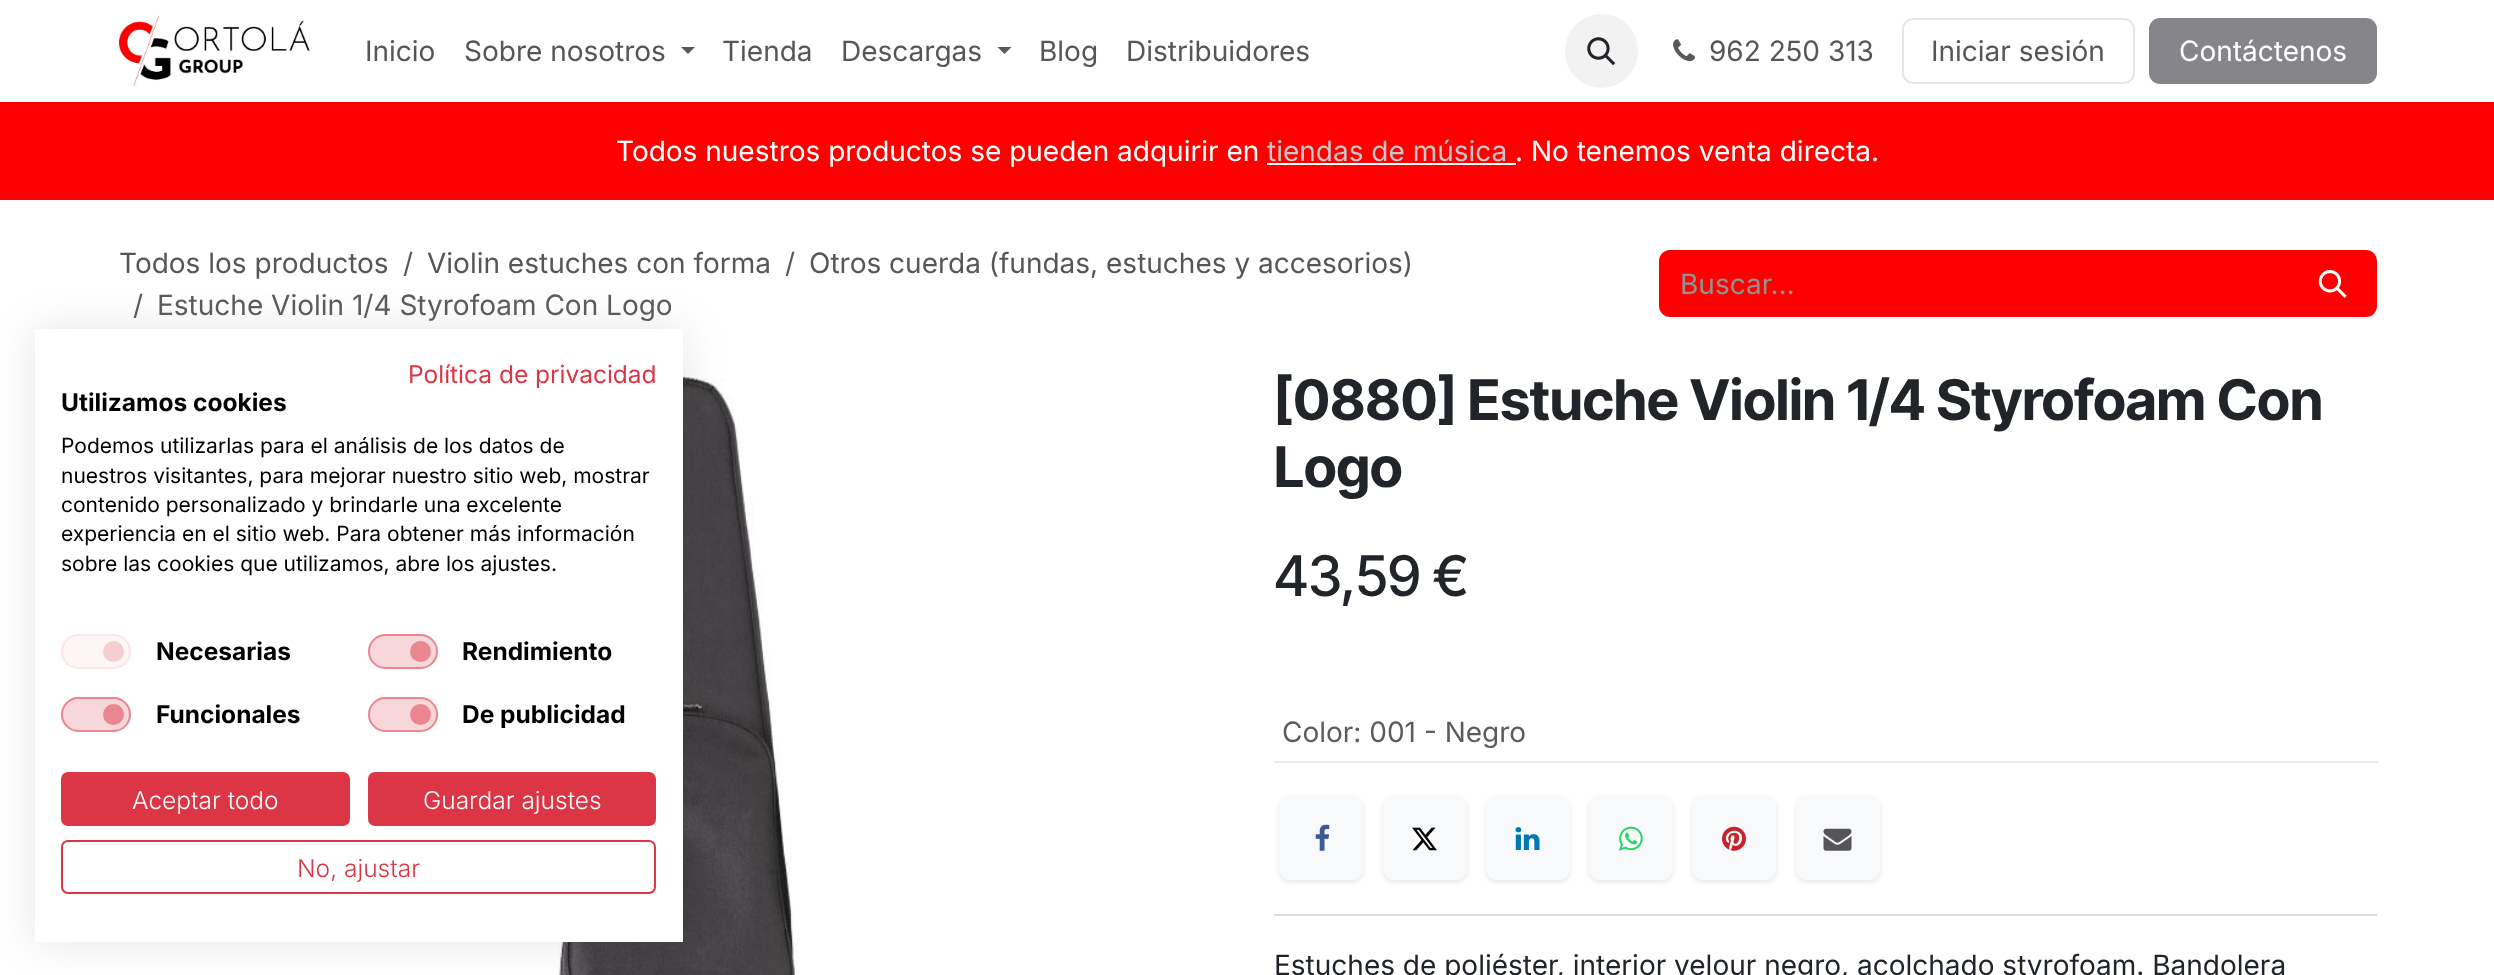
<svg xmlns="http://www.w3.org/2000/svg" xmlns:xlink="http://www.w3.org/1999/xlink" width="2494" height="975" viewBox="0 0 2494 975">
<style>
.cls-1{font:28px Inter;fill:#565559}
.cls-2{font:28px Inter;fill:#ffffff}
.cls-3{font:28px Inter;fill:#c7c6c8}
.cls-4{font:28px Inter;fill:#595c5f}
.cls-5{font:28px Inter;fill:#909294}
.cls-6{font:bold 56px Inter Tight;fill:#212529}
.cls-7{font:500 56px Inter Tight;fill:#212529}
.cls-8{font:28px Inter;fill:#212529}
.cls-9{font:24.5px Inter;fill:#dc3545}
.cls-10{font:bold 24.5px Inter;fill:#000000}
.cls-11{font:21px Inter;fill:#000000}
.cls-12{font:300 24.5px Inter;fill:#ffffff}
.cls-13{font:300 24.5px Inter;fill:#dc3545}
</style>
<rect width="100%" height="100%" fill="#ffffff"/>
<rect fill="#ff0000" x="0" y="102" width="2494" height="98"/>
<rect fill="#000000" fill-opacity="0.1" filter="blur(2.5px)" x="0" y="2" width="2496" height="101"/>
<rect fill="#ffffff" x="0" y="0" width="2494" height="102"/>
<image xlink:href="image0.png" x="119" y="15" width="191" height="71"/>
<path fill="#595959" d="M681 47H695L688 54Z"/>
<path fill="#595959" d="M997.5 47H1011.5L1004.5 54Z"/>
<rect fill="#f2f2f2" x="1565" y="14" width="73" height="74" rx="36.5"/>
<image xlink:href="image1.png" x="1587" y="37" width="29" height="29"/>
<image xlink:href="image2.png" x="1673" y="39" width="22" height="23"/>
<rect fill="none" stroke="#e6e6e6" stroke-width="2" x="1903" y="19" width="231" height="64" rx="10"/>
<rect fill="#86858a" stroke="#86858a" stroke-width="2" x="2150" y="19" width="226" height="64" rx="10"/>
<rect fill="#ffffff" x="1267" y="163" width="249" height="2"/>
<path fill="#ff0000" d="M1670 250H2291V317H1670C1664 317 1659 312 1659 306V261C1659 255 1664 250 1670 250Z"/>
<path fill="#ff0000" stroke="#ff0000" stroke-width="2" d="M2290 251H2366C2371.5 251 2376 255.5 2376 261V306C2376 311.5 2371.5 316 2366 316H2290Z"/>
<image xlink:href="image3.png" x="2318" y="270" width="29" height="28"/>
<image xlink:href="image4.png" x="528" y="369" width="270" height="606"/>
<rect fill="#e6e7e7" x="1274" y="761" width="1104" height="2"/>
<rect fill="#000000" fill-opacity="0.1" filter="blur(2.5px)" x="1279" y="798" width="84" height="84" rx="11"/>
<rect fill="#f8f9fa" x="1279" y="796" width="84" height="84" rx="11"/>
<image xlink:href="image5.png" x="1315" y="824" width="15" height="27"/>
<rect fill="#000000" fill-opacity="0.1" filter="blur(2.5px)" x="1383" y="798" width="84" height="84" rx="11"/>
<rect fill="#f8f9fa" x="1383" y="796" width="84" height="84" rx="11"/>
<image xlink:href="image6.png" x="1412" y="827" width="25" height="24"/>
<rect fill="#000000" fill-opacity="0.1" filter="blur(2.5px)" x="1486" y="798" width="84" height="84" rx="11"/>
<rect fill="#f8f9fa" x="1486" y="796" width="84" height="84" rx="11"/>
<image xlink:href="image7.png" x="1515" y="827" width="25" height="23"/>
<rect fill="#000000" fill-opacity="0.1" filter="blur(2.5px)" x="1589" y="798" width="84" height="84" rx="11"/>
<rect fill="#f8f9fa" x="1589" y="796" width="84" height="84" rx="11"/>
<image xlink:href="image8.png" x="1618" y="826" width="25" height="25"/>
<rect fill="#000000" fill-opacity="0.1" filter="blur(2.5px)" x="1692" y="798" width="84" height="84" rx="11"/>
<rect fill="#f8f9fa" x="1692" y="796" width="84" height="84" rx="11"/>
<image xlink:href="image9.png" x="1722" y="826" width="24" height="25"/>
<rect fill="#000000" fill-opacity="0.1" filter="blur(2.5px)" x="1796" y="798" width="84" height="84" rx="11"/>
<rect fill="#f8f9fa" x="1796" y="796" width="84" height="84" rx="11"/>
<image xlink:href="image10.png" x="1823" y="828" width="29" height="23"/>
<rect fill="#dededf" x="1274" y="914" width="1103" height="2"/>
<rect fill="#000000" fill-opacity="0.1" filter="blur(21px)" x="35" y="329" width="648" height="613"/>
<rect fill="#ffffff" x="35" y="329" width="648" height="613"/>
<rect fill="#fdf5f6" x="61" y="634" width="70" height="35" rx="17.5"/>
<circle fill="#f6cdd1" cx="113.5" cy="651.5" r="10.5"/>
<rect fill="none" stroke="#fbe6e8" stroke-width="2" x="62" y="635" width="68" height="33" rx="16.5"/>
<rect fill="#f8d7da" x="368" y="634" width="70" height="35" rx="17.5"/>
<circle fill="#ea8690" cx="420.5" cy="651.5" r="10.5"/>
<rect fill="none" stroke="#dc3545" stroke-opacity="0.5" stroke-width="2" x="369" y="635" width="68" height="33" rx="16.5"/>
<rect fill="#f8d7da" x="61" y="697" width="70" height="35" rx="17.5"/>
<circle fill="#ea8690" cx="113.5" cy="714.5" r="10.5"/>
<rect fill="none" stroke="#dc3545" stroke-opacity="0.5" stroke-width="2" x="62" y="698" width="68" height="33" rx="16.5"/>
<rect fill="#f8d7da" x="368" y="697" width="70" height="35" rx="17.5"/>
<circle fill="#ea8690" cx="420.5" cy="714.5" r="10.5"/>
<rect fill="none" stroke="#dc3545" stroke-opacity="0.5" stroke-width="2" x="369" y="698" width="68" height="33" rx="16.5"/>
<rect fill="#dc3545" stroke="#dc3545" stroke-width="2" x="62" y="773" width="287" height="52" rx="6"/>
<rect fill="#dc3545" stroke="#dc3545" stroke-width="2" x="369" y="773" width="286" height="52" rx="6"/>
<rect fill="none" stroke="#dc3545" stroke-width="2" x="62" y="841" width="593" height="52" rx="6"/>
<text class="cls-1" x="365" y="61">Inicio</text>
<text class="cls-1" x="464" y="61">Sobre nosotros</text>
<text class="cls-1" x="722" y="61">Tienda</text>
<text class="cls-1" x="841" y="61">Descargas</text>
<text class="cls-1" x="1039" y="61">Blog</text>
<text class="cls-1" x="1126" y="61">Distribuidores</text>
<text class="cls-1" x="1709" y="61">962 250 313</text>
<text class="cls-1" x="1931" y="61">Iniciar sesión</text>
<text class="cls-2" x="2179" y="61">Contáctenos</text>
<text class="cls-2" x="616" y="161">Todos nuestros productos se pueden adquirir en</text>
<text class="cls-3" x="1267" y="161">tiendas de música</text>
<text class="cls-2" x="1515" y="161">. No tenemos venta directa.</text>
<text class="cls-1" x="119" y="273">Todos los productos</text>
<text class="cls-4" x="403" y="273">/</text>
<text class="cls-1" x="427" y="273">Violin estuches con forma</text>
<text class="cls-4" x="785" y="273">/</text>
<text class="cls-1" x="809" y="273">Otros cuerda (fundas, estuches y accesorios)</text>
<text class="cls-4" x="133" y="315">/</text>
<text class="cls-4" x="157" y="315">Estuche Violin 1/4 Styrofoam Con Logo</text>
<text class="cls-5" x="1680" y="294">Buscar…</text>
<text class="cls-6"><tspan x="1274" y="420">[0880] Estuche Violin 1/4 Styrofoam Con</tspan><tspan x="1274" y="487">Logo</tspan></text>
<text class="cls-7" x="1274" y="596">43,59 €</text>
<text class="cls-4" x="1282" y="742">Color: 001 - Negro</text>
<text class="cls-8" x="1274" y="975">Estuches de poliéster, interior velour negro, acolchado styrofoam. Bandolera</text>
<text class="cls-9" x="408" y="383">Política de privacidad</text>
<text class="cls-10" x="61" y="411">Utilizamos cookies</text>
<text class="cls-11"><tspan x="61" y="453">Podemos utilizarlas para el análisis de los datos de</tspan><tspan x="61" y="483">nuestros visitantes, para mejorar nuestro sitio web, mostrar</tspan><tspan x="61" y="512">contenido personalizado y brindarle una excelente</tspan><tspan x="61" y="541">experiencia en el sitio web. Para obtener más información</tspan><tspan x="61" y="571">sobre las cookies que utilizamos, abre los ajustes.</tspan></text>
<text class="cls-10" x="156" y="660">Necesarias</text>
<text class="cls-10" x="462" y="660">Rendimiento</text>
<text class="cls-10" x="156" y="723">Funcionales</text>
<text class="cls-10" x="462" y="723">De publicidad</text>
<text class="cls-12" x="132" y="809">Aceptar todo</text>
<text class="cls-12" x="423" y="809">Guardar ajustes</text>
<text class="cls-13" x="297" y="877">No, ajustar</text>
</svg>
